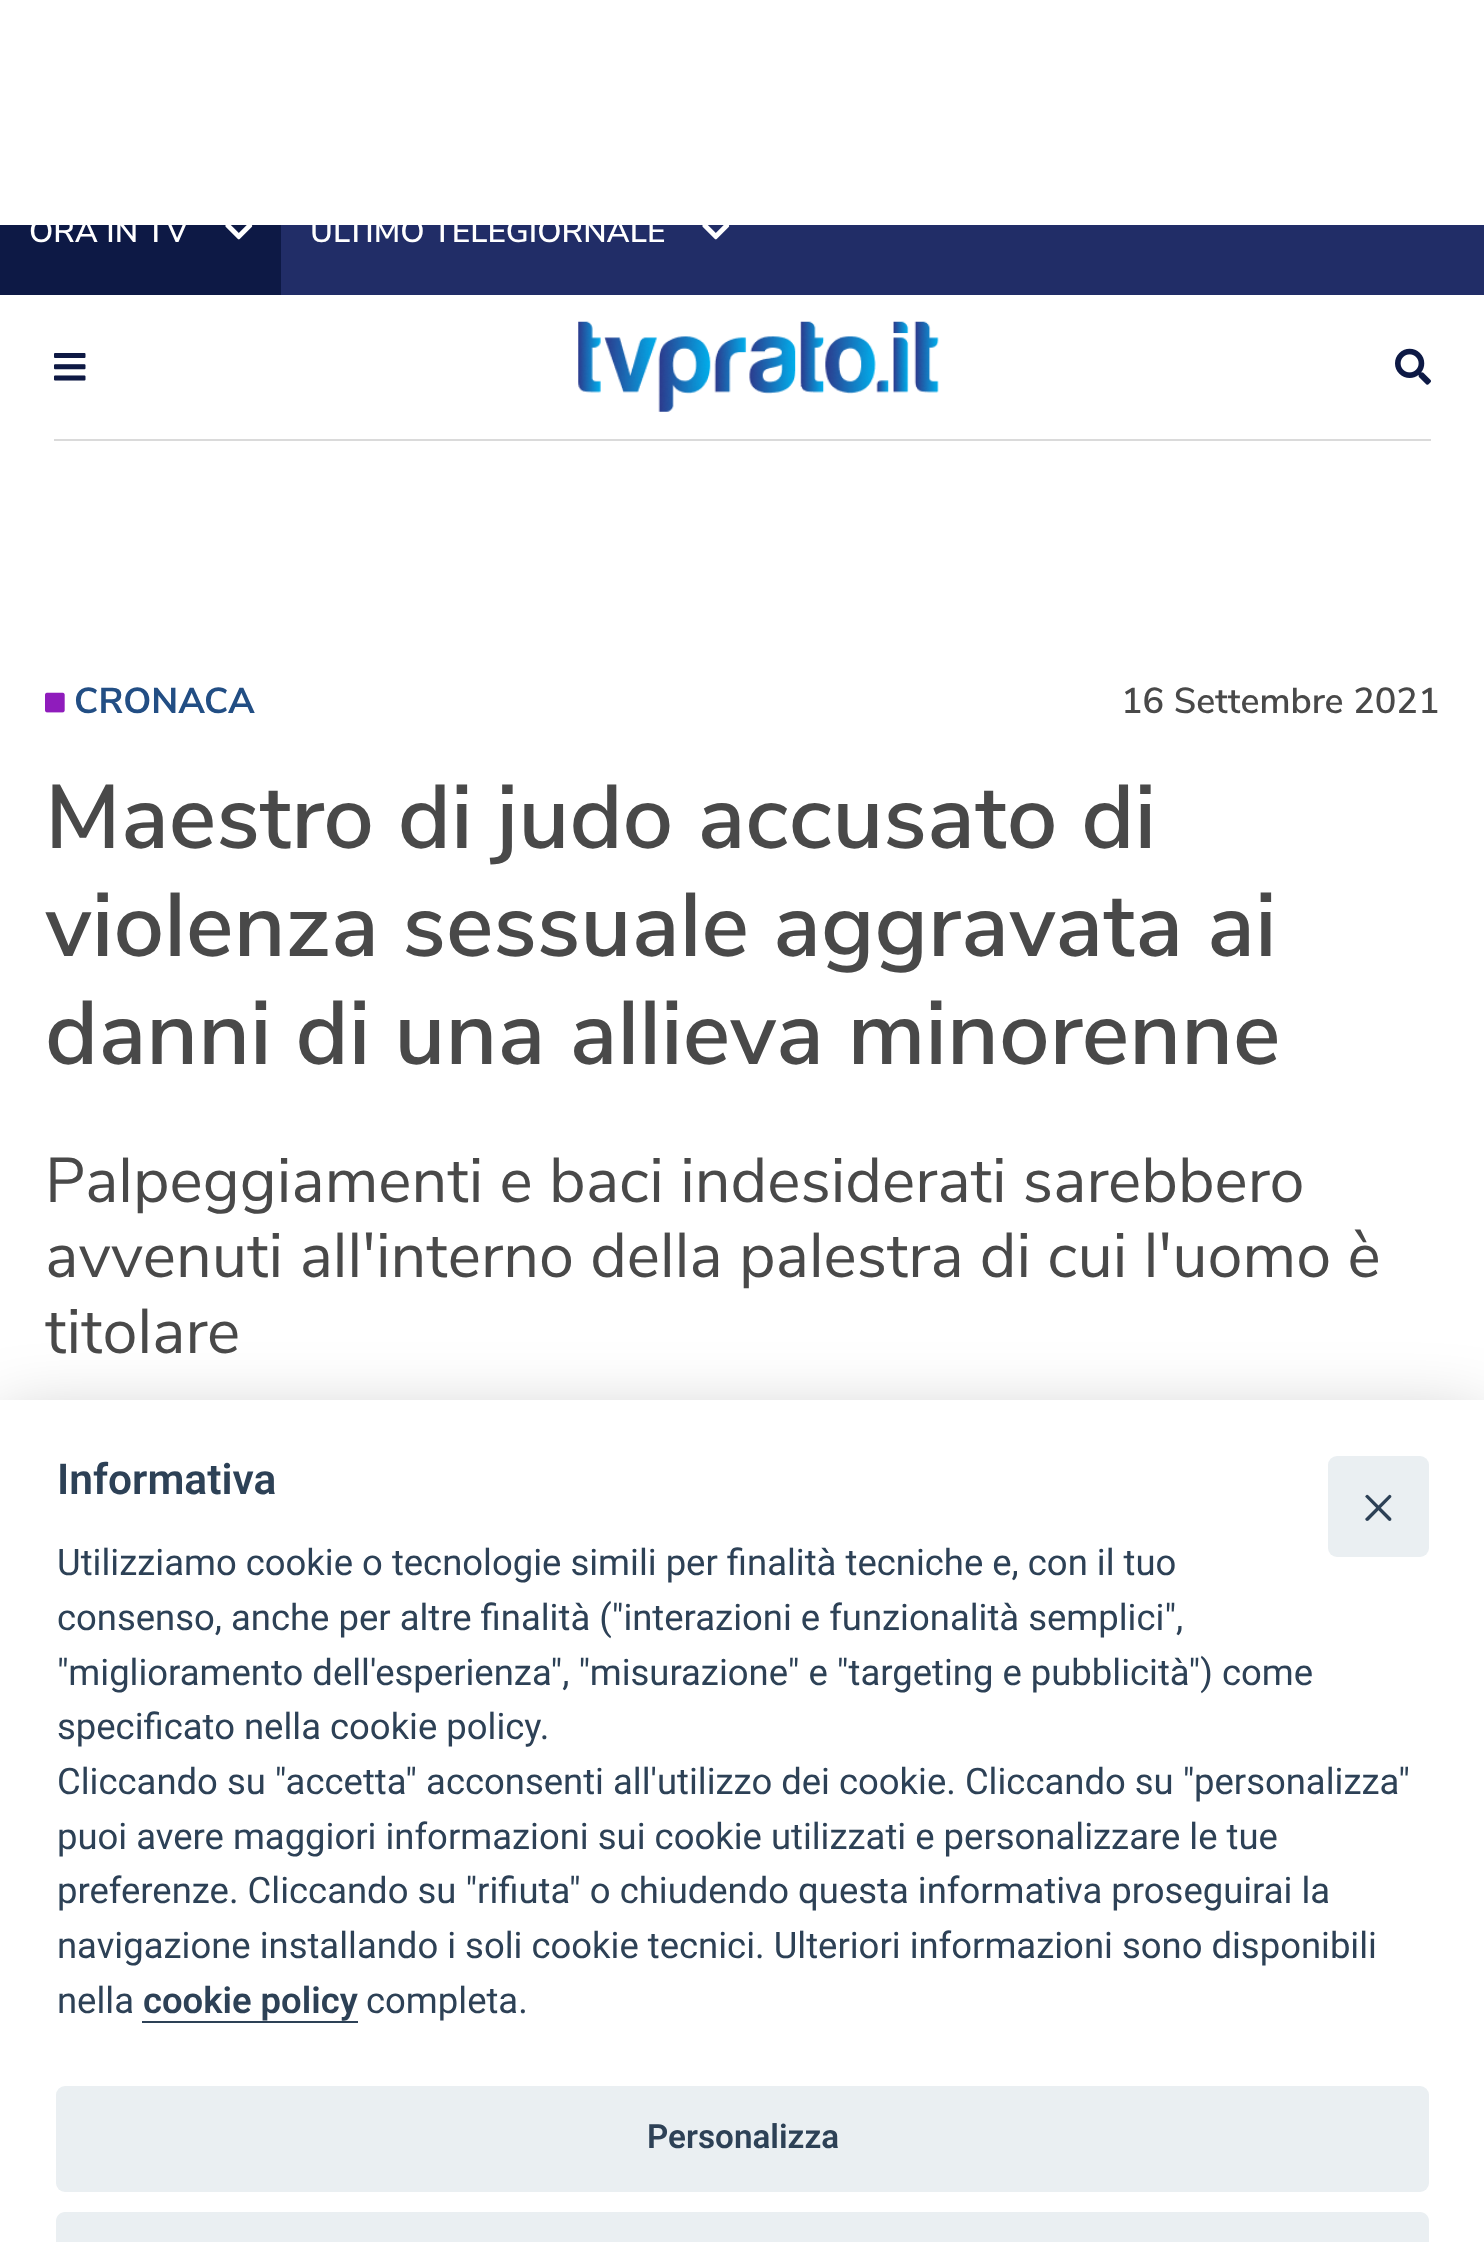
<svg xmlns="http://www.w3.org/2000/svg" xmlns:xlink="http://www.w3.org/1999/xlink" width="1484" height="2242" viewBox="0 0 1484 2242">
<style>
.cls-1{font:600 31.5px Nunito Sans;fill:#ffffff}
.cls-2{font:bold 36px Nunito Sans;fill:#224e84}
.cls-3{font:600 36px Nunito Sans;fill:#494949}
.cls-4{font:600 90px Nunito Sans;fill:#494949}
.cls-5{font:63px Nunito Sans;fill:#494949}
.cls-6{font:600 42.5px Roboto;fill:#2d4156}
.cls-7{font:36.45px Roboto;fill:#2d4156}
.cls-8{font:600 36.45px Roboto;fill:#2d4156}
.cls-9{font:600 33.25px Roboto;fill:#2d4156}
</style>
<rect width="100%" height="100%" fill="#ffffff"/>
<rect fill="#0d1945" x="0" y="225" width="281" height="70"/>
<image xlink:href="image0.png" x="225" y="225" width="28" height="15"/>
<rect fill="#212d67" x="281" y="225" width="1203" height="70"/>
<image xlink:href="image1.png" x="702" y="225" width="28" height="15"/>
<rect fill="#dadada" x="54" y="439" width="1377" height="2"/>
<image xlink:href="image2.png" x="54" y="353" width="32" height="28"/>
<image xlink:href="image3.png" x="578" y="321" width="361" height="91"/>
<image xlink:href="image4.png" x="1395" y="348" width="36" height="37"/>
<image xlink:href="image5.png" x="45" y="692" width="20" height="21"/>
<rect fill="#020203" fill-opacity="0.28" filter="blur(38px)" x="0" y="1424" width="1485" height="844"/>
<rect fill="#ffffff" x="0" y="1400" width="1484" height="842"/>
<rect fill="#eaeff2" x="1328" y="1456" width="101" height="101" rx="9"/>
<path fill="#2d4156" d="M1391 1495.5C1391.5 1496 1391.5 1497 1391 1497.5L1368.5 1520.5C1367.5 1521 1366.5 1521 1366 1520.5C1365 1519.5 1365 1518.5 1366 1518L1388.5 1495.5C1389 1494.5 1390 1494.5 1391 1495.5Z"/>
<path fill="#2d4156" d="M1366 1495.5C1366.5 1494.5 1367.5 1494.5 1368.5 1495.5L1391 1518C1391.5 1518.5 1391.5 1519.5 1391 1520.5C1390 1521 1389 1521 1388.5 1520.5L1366 1497.5C1365 1497 1365 1496 1366 1495.5Z"/>
<rect fill="#2d4156" x="142" y="2021" width="216" height="2"/>
<rect fill="#eaeff2" x="56" y="2086" width="1373" height="106" rx="9"/>
<path fill="#eaeff2" d="M65 2212H1420C1425 2212 1429 2216 1429 2221V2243H56V2221C56 2216 60 2212 65 2212Z"/>
<text class="cls-1" x="29" y="242">ORA IN TV</text>
<text class="cls-1" x="310" y="242">ULTIMO TELEGIORNALE</text>
<text class="cls-2" x="74" y="713">CRONACA</text>
<text class="cls-3" x="1121" y="713">16 Settembre 2021</text>
<text class="cls-4"><tspan x="45" y="848">Maestro di judo accusato di</tspan><tspan x="45" y="956">violenza sessuale aggravata ai</tspan><tspan x="45" y="1064">danni di una allieva minorenne</tspan></text>
<text class="cls-5"><tspan x="45" y="1202">Palpeggiamenti e baci indesiderati sarebbero</tspan><tspan x="45" y="1277">avvenuti all'interno della palestra di cui l'uomo è</tspan><tspan x="45" y="1353">titolare</tspan></text>
<text class="cls-6" x="57" y="1494">Informativa</text>
<text class="cls-7"><tspan x="57" y="1575">Utilizziamo cookie o tecnologie simili per finalità tecniche e, con il tuo</tspan><tspan x="57" y="1630">consenso, anche per altre finalità ("interazioni e funzionalità semplici",</tspan><tspan x="57" y="1685">"miglioramento dell'esperienza", "misurazione" e "targeting e pubblicità") come</tspan><tspan x="57" y="1739">specificato nella cookie policy.</tspan><tspan x="57" y="1794">Cliccando su "accetta" acconsenti all'utilizzo dei cookie. Cliccando su "personalizza"</tspan><tspan x="57" y="1849">puoi avere maggiori informazioni sui cookie utilizzati e personalizzare le tue</tspan><tspan x="57" y="1903">preferenze. Cliccando su "rifiuta" o chiudendo questa informativa proseguirai la</tspan><tspan x="57" y="1958">navigazione installando i soli cookie tecnici. Ulteriori informazioni sono disponibili</tspan><tspan x="57" y="2013">nella</tspan></text>
<text class="cls-8" x="143" y="2013">cookie policy</text>
<text class="cls-7" x="366" y="2013">completa.</text>
<text class="cls-9" x="647" y="2148">Personalizza</text>
</svg>
